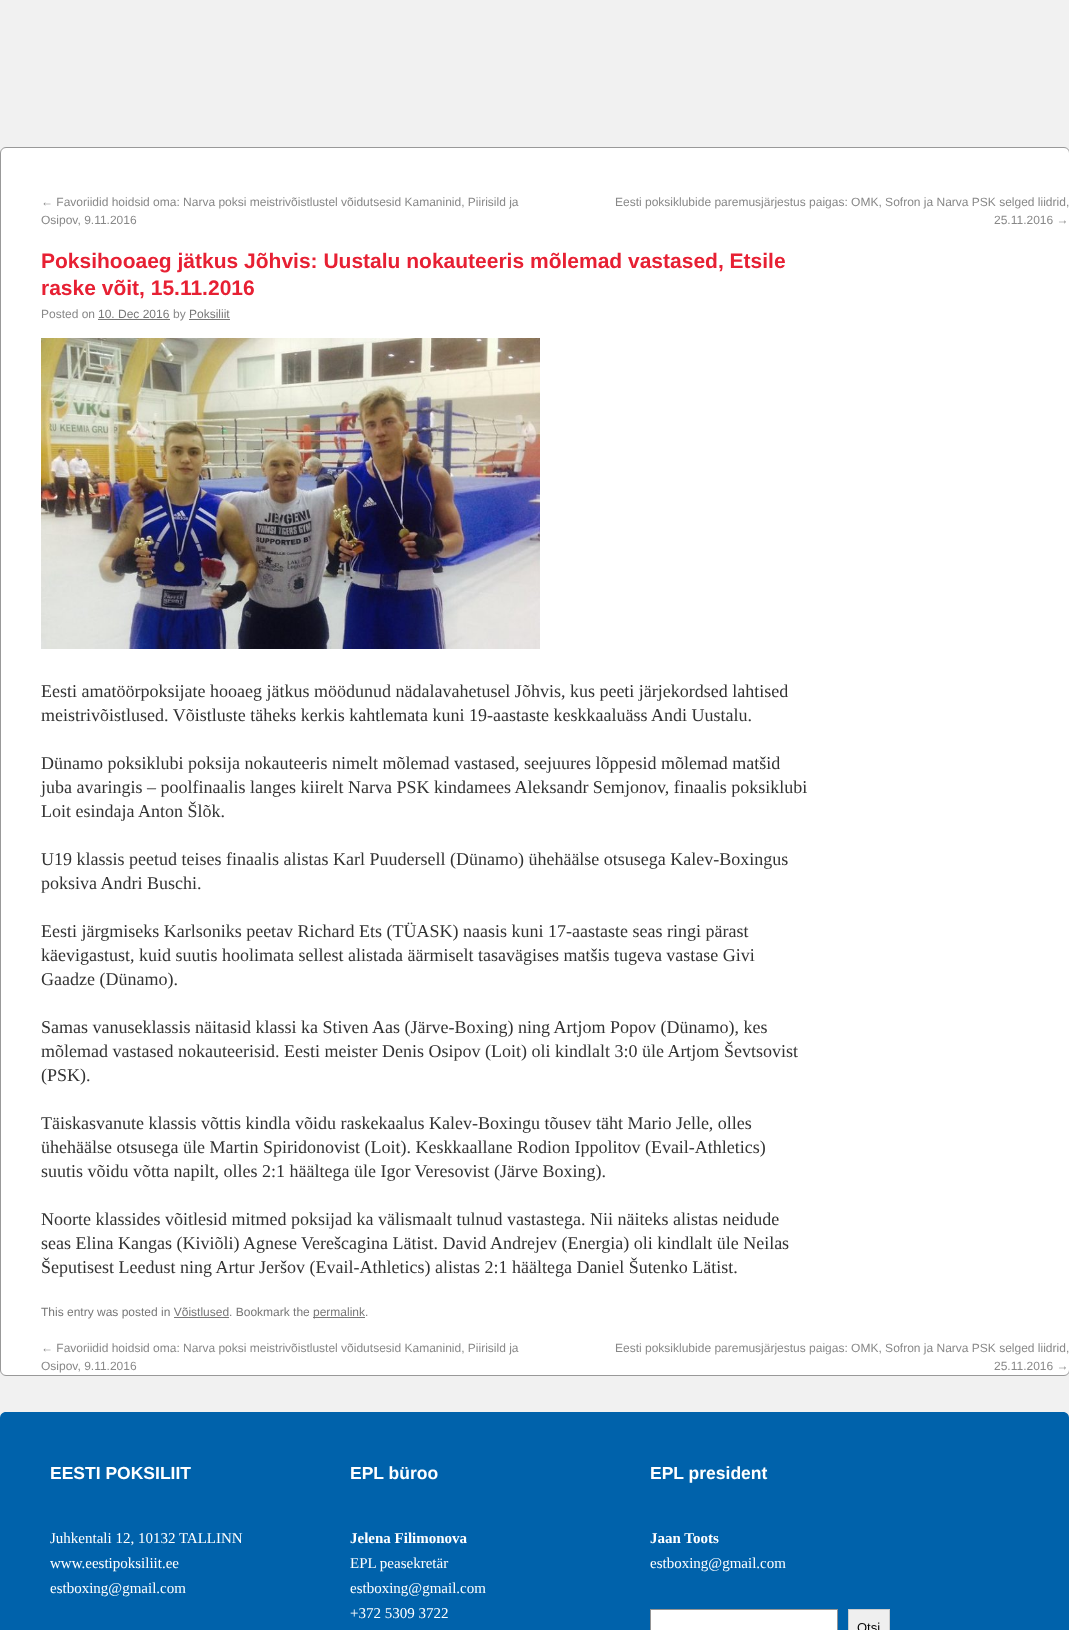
<svg xmlns="http://www.w3.org/2000/svg" xmlns:xlink="http://www.w3.org/1999/xlink" width="1069" height="1630" viewBox="0 0 1069 1630">
<style>
.cls-1{font:12px Liberation Sans;fill:#888888}
.cls-2{font:bold 21px Liberation Sans;fill:#e72033}
.cls-3{font:12px Liberation Sans;fill:#777777}
.cls-4{font:18px Liberation Serif;fill:#333333}
.cls-5{font:bold 17.5px Liberation Sans;fill:#ffffff}
.cls-6{font:15px Liberation Serif;fill:#ffffff}
.cls-7{font:bold 15px Liberation Serif;fill:#ffffff}
.cls-8{font:13px Liberation Sans;fill:#000000}
</style>
<rect width="100%" height="100%" fill="#f1f1f1"/>
<rect fill="#ffffff" stroke="#999999" x="0.5" y="147.5" width="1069" height="1228" rx="5.5"/>
<rect fill="#777777" x="98" y="319" width="72" height="1"/>
<rect fill="#777777" x="189" y="319" width="41" height="1"/>
<image xlink:href="image0.png" x="41" y="338" width="499" height="311"/>
<rect fill="#777777" x="313" y="1317" width="52" height="1"/>
<rect fill="#777777" x="174" y="1317" width="55" height="1"/>
<path fill="#0062ab" d="M6 1412H1063C1066.5 1412 1069 1414.5 1069 1418V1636H0V1418C0 1414.5 2.5 1412 6 1412Z"/>
<rect fill="#ffffff" stroke="#949494" x="650.5" y="1609.5" width="187" height="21"/>
<rect fill="#efefef" stroke="#cccccc" x="848.5" y="1609.5" width="41" height="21"/>
<text class="cls-1"><tspan x="41" y="206">← Favoriidid hoidsid oma: Narva poksi meistrivõistlustel võidutsesid Kamaninid, Piirisild ja</tspan><tspan x="41" y="224">Osipov, 9.11.2016</tspan></text>
<text class="cls-1" x="615" y="206">Eesti poksiklubide paremusjärjestus paigas: OMK, Sofron ja Narva PSK selged liidrid,</text>
<text class="cls-1" x="994" y="224">25.11.2016 →</text>
<text class="cls-2"><tspan x="41" y="268">Poksihooaeg jätkus Jõhvis: Uustalu nokauteeris mõlemad vastased, Etsile</tspan><tspan x="41" y="295">raske võit, 15.11.2016</tspan></text>
<text class="cls-1" x="41" y="318">Posted on</text>
<text class="cls-3" x="98" y="318">10. Dec 2016</text>
<text class="cls-1" x="173" y="318">by</text>
<text class="cls-3" x="189" y="318">Poksiliit</text>
<text class="cls-4"><tspan x="41" y="697">Eesti amatöörpoksijate hooaeg jätkus möödunud nädalavahetusel Jõhvis, kus peeti järjekordsed lahtised</tspan><tspan x="41" y="721">meistrivõistlused. Võistluste täheks kerkis kahtlemata kuni 19-aastaste keskkaaluäss Andi Uustalu.</tspan></text>
<text class="cls-4"><tspan x="41" y="769">Dünamo poksiklubi poksija nokauteeris nimelt mõlemad vastased, seejuures lõppesid mõlemad matšid</tspan><tspan x="41" y="793">juba avaringis – poolfinaalis langes kiirelt Narva PSK kindamees Aleksandr Semjonov, finaalis poksiklubi</tspan><tspan x="41" y="817">Loit esindaja Anton Šlõk.</tspan></text>
<text class="cls-4"><tspan x="41" y="865">U19 klassis peetud teises finaalis alistas Karl Puudersell (Dünamo) ühehäälse otsusega Kalev-Boxingus</tspan><tspan x="41" y="889">poksiva Andri Buschi.</tspan></text>
<text class="cls-4"><tspan x="41" y="937">Eesti järgmiseks Karlsoniks peetav Richard Ets (TÜASK) naasis kuni 17-aastaste seas ringi pärast</tspan><tspan x="41" y="961">käevigastust, kuid suutis hoolimata sellest alistada äärmiselt tasavägises matšis tugeva vastase Givi</tspan><tspan x="41" y="985">Gaadze (Dünamo).</tspan></text>
<text class="cls-4"><tspan x="41" y="1033">Samas vanuseklassis näitasid klassi ka Stiven Aas (Järve-Boxing) ning Artjom Popov (Dünamo), kes</tspan><tspan x="41" y="1057">mõlemad vastased nokauteerisid. Eesti meister Denis Osipov (Loit) oli kindlalt 3:0 üle Artjom Ševtsovist</tspan><tspan x="41" y="1081">(PSK).</tspan></text>
<text class="cls-4"><tspan x="41" y="1129">Täiskasvanute klassis võttis kindla võidu raskekaalus Kalev-Boxingu tõusev täht Mario Jelle, olles</tspan><tspan x="41" y="1153">ühehäälse otsusega üle Martin Spiridonovist (Loit). Keskkaallane Rodion Ippolitov (Evail-Athletics)</tspan><tspan x="41" y="1177">suutis võidu võtta napilt, olles 2:1 häältega üle Igor Veresovist (Järve Boxing).</tspan></text>
<text class="cls-4"><tspan x="41" y="1225">Noorte klassides võitlesid mitmed poksijad ka välismaalt tulnud vastastega. Nii näiteks alistas neidude</tspan><tspan x="41" y="1249">seas Elina Kangas (Kiviõli) Agnese Verešcagina Lätist. David Andrejev (Energia) oli kindlalt üle Neilas</tspan><tspan x="41" y="1273">Šeputisest Leedust ning Artur Jeršov (Evail-Athletics) alistas 2:1 häältega Daniel Šutenko Lätist.</tspan></text>
<text class="cls-3" x="41" y="1316">This entry was posted in Võistlused. Bookmark the</text>
<text class="cls-3" x="313" y="1316">permalink.</text>
<text class="cls-1"><tspan x="41" y="1352">← Favoriidid hoidsid oma: Narva poksi meistrivõistlustel võidutsesid Kamaninid, Piirisild ja</tspan><tspan x="41" y="1370">Osipov, 9.11.2016</tspan></text>
<text class="cls-1" x="615" y="1352">Eesti poksiklubide paremusjärjestus paigas: OMK, Sofron ja Narva PSK selged liidrid,</text>
<text class="cls-1" x="994" y="1370">25.11.2016 →</text>
<text class="cls-5" x="50" y="1479">EESTI POKSILIIT</text>
<text class="cls-6"><tspan x="50" y="1543">Juhkentali 12, 10132 TALLINN</tspan><tspan x="50" y="1568">www.eestipoksiliit.ee</tspan><tspan x="50" y="1593">estboxing@gmail.com</tspan></text>
<text class="cls-5" x="350" y="1479">EPL büroo</text>
<text class="cls-7" x="350" y="1543">Jelena Filimonova</text>
<text class="cls-6"><tspan x="350" y="1568">EPL peasekretär</tspan><tspan x="350" y="1593">estboxing@gmail.com</tspan><tspan x="350" y="1618">+372 5309 3722</tspan></text>
<text class="cls-5" x="650" y="1479">EPL president</text>
<text class="cls-7" x="650" y="1543">Jaan Toots</text>
<text class="cls-6" x="650" y="1568">estboxing@gmail.com</text>
<text class="cls-8" x="857" y="1632">Otsi</text>
</svg>
